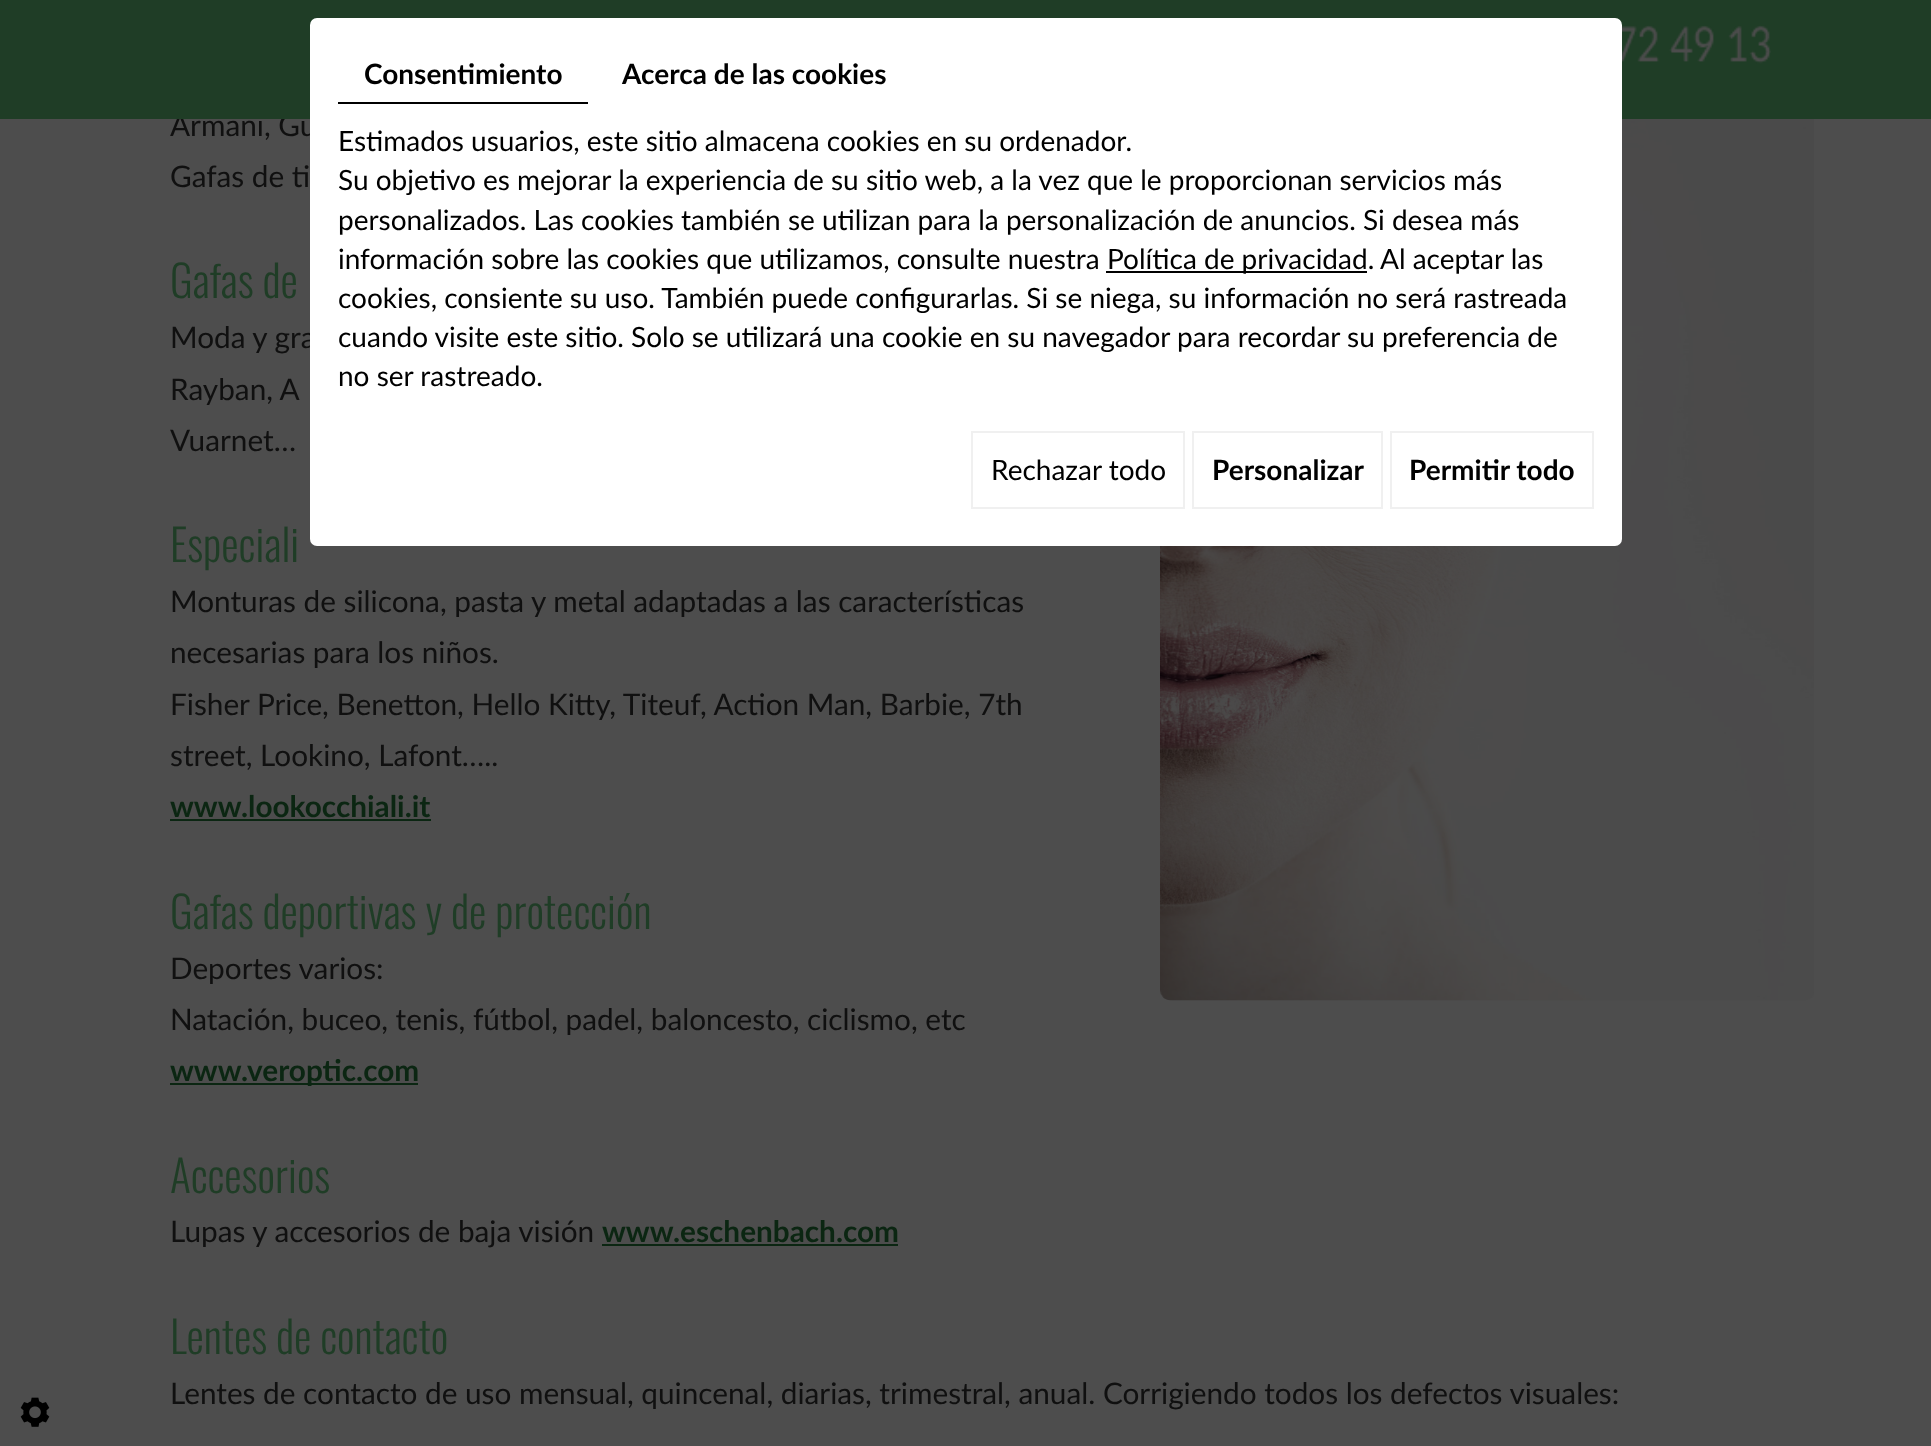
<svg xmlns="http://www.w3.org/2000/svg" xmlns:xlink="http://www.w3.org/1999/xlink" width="1931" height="1446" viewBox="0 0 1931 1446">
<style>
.cls-1{font:29.75px Lato;fill:#101010}
.cls-2{font:300 43.75px Oswald;fill:#1f3d26}
.cls-3{font:bold 28px Lato;fill:#000000}
.cls-4{font:28px Lato;fill:#000000}
.cls-5{font:bold 29.75px Lato;fill:#0b2612}
</style>
<rect width="100%" height="100%" fill="#4d4d4d"/>
<image xlink:href="image1.png" x="20" y="1397" width="30" height="30"/>
<rect fill="#0b2612" x="170" y="819" width="261" height="2"/>
<rect fill="#0b2612" x="170" y="1083" width="248" height="2"/>
<rect fill="#0b2612" x="602" y="1244" width="296" height="2"/>
<image xlink:href="image2.png" x="1160" y="119" width="654" height="882"/>
<text class="cls-1" x="170" y="136">Armani, Gu</text>
<rect fill="#1f3d26" x="0" y="0" width="1931" height="119"/>
<image xlink:href="image0.png" x="1622" y="25" width="149" height="39"/>
<text class="cls-1" x="170" y="187">Gafas de ti</text>
<text class="cls-2" x="170" y="298">Gafas de</text>
<text class="cls-1" x="170" y="348">Moda y gra</text>
<rect fill="#ffffff" x="310" y="18" width="1312" height="528" rx="7"/>
<rect fill="none" stroke="#f0f0f0" stroke-width="2" x="1391" y="432" width="202" height="76"/>
<text class="cls-3" x="1409" y="480">Permitir todo</text>
<rect fill="none" stroke="#f0f0f0" stroke-width="2" x="1193" y="432" width="189" height="76"/>
<text class="cls-3" x="1212" y="480">Personalizar</text>
<rect fill="none" stroke="#f0f0f0" stroke-width="2" x="972" y="432" width="212" height="76"/>
<text class="cls-4" x="991" y="480">Rechazar todo</text>
<text class="cls-4" x="338" y="386">no ser rastreado.</text>
<text class="cls-4" x="338" y="347">cuando visite este sitio. Solo se utilizará una cookie en su navegador para recordar su preferencia de</text>
<text class="cls-4" x="338" y="308">cookies, consiente su uso. También puede configurarlas. Si se niega, su información no será rastreada</text>
<text class="cls-4" x="1380" y="269">Al aceptar las</text>
<rect fill="#000000" x="1106" y="271" width="261" height="2"/>
<text class="cls-4" x="1107" y="269">Política de privacidad.</text>
<text class="cls-4" x="338" y="269">información sobre las cookies que utilizamos, consulte nuestra</text>
<text class="cls-4" x="338" y="230">personalizados. Las cookies también se utilizan para la personalización de anuncios. Si desea más</text>
<text class="cls-4" x="338" y="190">Su objetivo es mejorar la experiencia de su sitio web, a la vez que le proporcionan servicios más</text>
<text class="cls-4" x="338" y="151">Estimados usuarios, este sitio almacena cookies en su ordenador.</text>
<text class="cls-3" x="622" y="84">Acerca de las cookies</text>
<text class="cls-3" x="364" y="84">Consentimiento</text>
<rect fill="#000000" x="338" y="102" width="250" height="2"/>
<text class="cls-1"><tspan x="170" y="400">Rayban, A</tspan><tspan x="170" y="451">Vuarnet…</tspan></text>
<text class="cls-2" x="170" y="562">Especiali</text>
<text class="cls-1"><tspan x="170" y="612">Monturas de silicona, pasta y metal adaptadas a las características</tspan><tspan x="170" y="663">necesarias para los niños.</tspan><tspan x="170" y="715">Fisher Price, Benetton, Hello Kitty, Titeuf, Action Man, Barbie, 7th</tspan><tspan x="170" y="766">street, Lookino, Lafont…..</tspan></text>
<text class="cls-5" x="170" y="817">www.lookocchiali.it</text>
<text class="cls-2" x="170" y="929">Gafas deportivas y de protección</text>
<text class="cls-1"><tspan x="170" y="979">Deportes varios:</tspan><tspan x="170" y="1030">Natación, buceo, tenis, fútbol, padel, baloncesto, ciclismo, etc</tspan></text>
<text class="cls-5" x="170" y="1081">www.veroptic.com</text>
<text class="cls-2" x="170" y="1193">Accesorios</text>
<text class="cls-1" x="170" y="1242">Lupas y accesorios de baja visión</text>
<text class="cls-5" x="602" y="1242">www.eschenbach.com</text>
<text class="cls-2" x="170" y="1354">Lentes de contacto</text>
<text class="cls-1" x="170" y="1404">Lentes de contacto de uso mensual, quincenal, diarias, trimestral, anual. Corrigiendo todos los defectos visuales:</text>
</svg>
